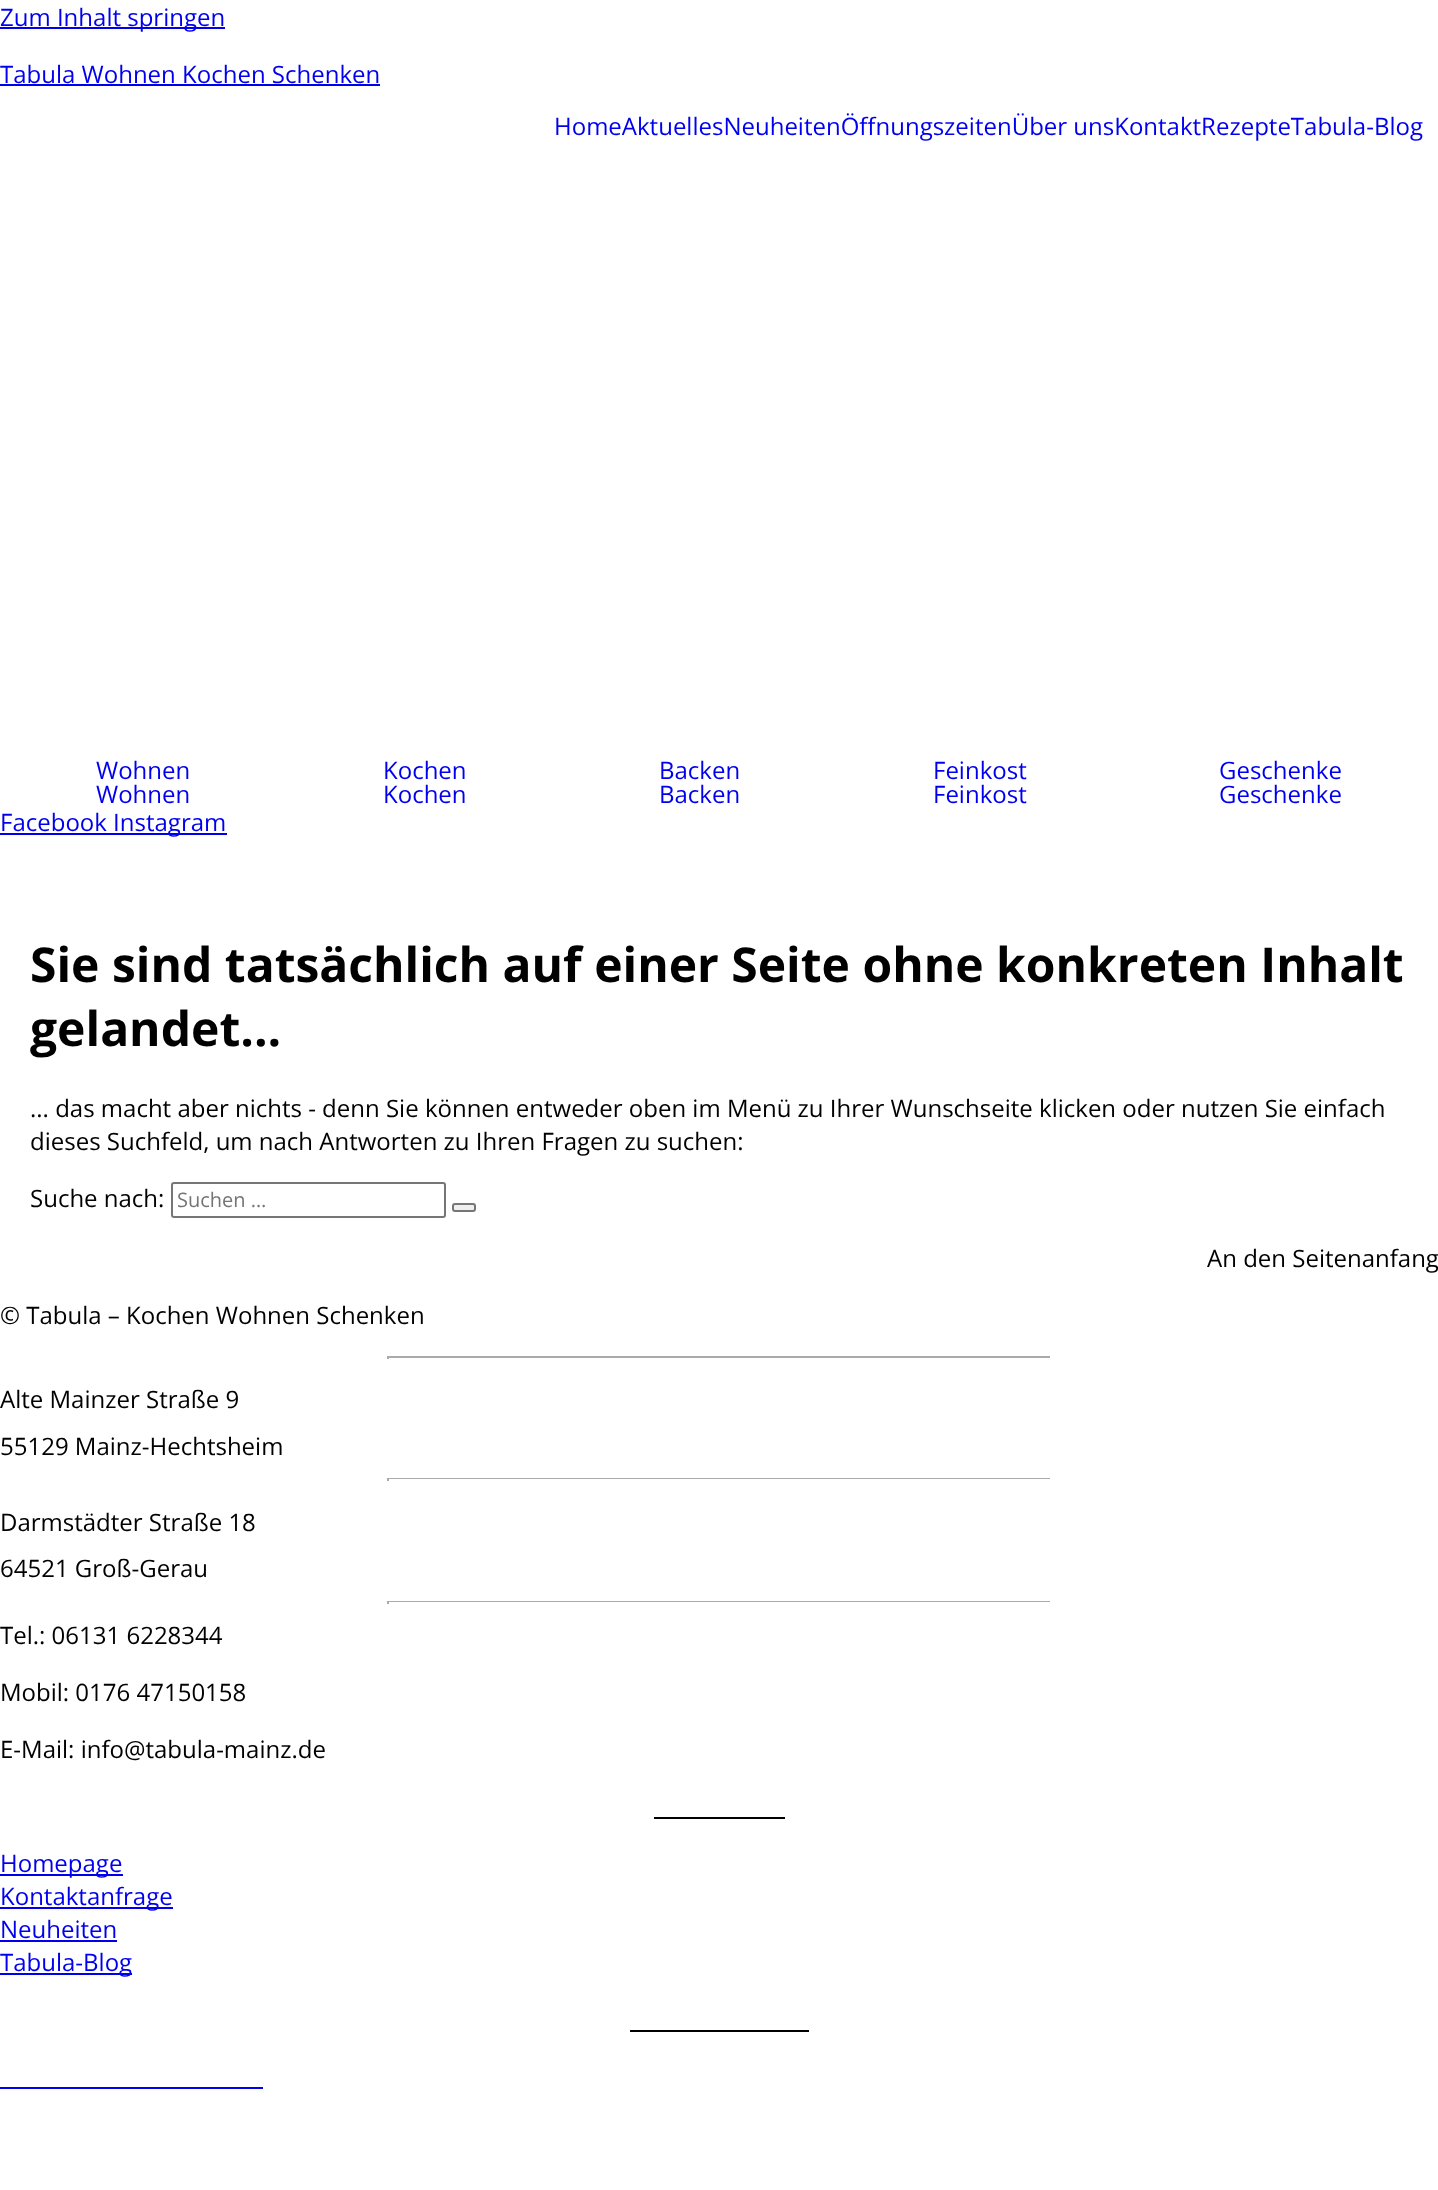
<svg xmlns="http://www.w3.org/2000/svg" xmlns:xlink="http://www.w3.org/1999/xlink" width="1438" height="2190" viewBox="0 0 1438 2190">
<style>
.cls-1{font:24px Open Sans;fill:#0000ee}
.cls-2{font:bold 48px Open Sans;fill:#000000}
.cls-3{font:24px Open Sans;fill:#000000}
.cls-4{font:20px Open Sans;fill:#757575}
</style>
<rect width="100%" height="100%" fill="#ffffff"/>
<rect fill="#0000ee" x="0" y="27" width="225" height="2"/>
<rect fill="#0000ee" x="0" y="84" width="380" height="2"/>
<rect fill="#0000ee" x="0" y="833" width="227" height="2"/>
<rect fill="none" stroke="#767676" stroke-width="2" x="172" y="1183" width="273" height="34" rx="2"/>
<rect fill="#efefef" stroke="#767676" stroke-width="2" x="453" y="1204" width="22" height="7" rx="2"/>
<rect fill="#aaaaaa" x="387" y="1356" width="665" height="2"/>
<rect fill="#ffffff" x="1050" y="1356" width="2" height="3"/>
<rect fill="#aaaaaa" x="387" y="1356" width="2" height="3"/>
<rect fill="#aaaaaa" x="387" y="1478" width="665" height="1"/>
<rect fill="#ffffff" x="1050" y="1478" width="2" height="3"/>
<rect fill="#aaaaaa" x="387" y="1478" width="2" height="3"/>
<rect fill="#aaaaaa" x="387" y="1601" width="665" height="1"/>
<rect fill="#ffffff" x="1050" y="1601" width="2" height="3"/>
<rect fill="#aaaaaa" x="387" y="1601" width="2" height="3"/>
<rect fill="#000000" x="654" y="1817" width="131" height="2"/>
<rect fill="#0000ee" x="0" y="1874" width="123" height="2"/>
<rect fill="#0000ee" x="0" y="1907" width="173" height="2"/>
<rect fill="#0000ee" x="0" y="1940" width="117" height="2"/>
<rect fill="#0000ee" x="0" y="1973" width="132" height="2"/>
<rect fill="#000000" x="630" y="2030" width="179" height="2"/>
<rect fill="#0000ee" x="0" y="2087" width="263" height="2"/>
<text class="cls-1" x="0" y="26">Zum Inhalt springen</text>
<text class="cls-1" x="0" y="83">Tabula Wohnen Kochen Schenken</text>
<text class="cls-1" x="554" y="135">HomeAktuellesNeuheitenÖffnungszeitenÜber unsKontaktRezepteTabula-Blog</text>
<text class="cls-1" x="96" y="779">Wohnen</text>
<text class="cls-1" x="383" y="779">Kochen</text>
<text class="cls-1" x="659" y="779">Backen</text>
<text class="cls-1" x="933" y="779">Feinkost</text>
<text class="cls-1" x="1219" y="779">Geschenke</text>
<text class="cls-1" x="96" y="803">Wohnen</text>
<text class="cls-1" x="383" y="803">Kochen</text>
<text class="cls-1" x="659" y="803">Backen</text>
<text class="cls-1" x="933" y="803">Feinkost</text>
<text class="cls-1" x="1219" y="803">Geschenke</text>
<text class="cls-1" x="0" y="831">Facebook Instagram</text>
<text class="cls-2"><tspan x="30" y="982">Sie sind tatsächlich auf einer Seite ohne konkreten Inhalt</tspan><tspan x="30" y="1046">gelandet...</tspan></text>
<text class="cls-3"><tspan x="30" y="1117">... das macht aber nichts - denn Sie können entweder oben im Menü zu Ihrer Wunschseite klicken oder nutzen Sie einfach</tspan><tspan x="30" y="1150">dieses Suchfeld, um nach Antworten zu Ihren Fragen zu suchen:</tspan></text>
<text class="cls-3" x="30" y="1207">Suche nach:</text>
<text class="cls-4" x="177" y="1207">Suchen …</text>
<text class="cls-3" x="1207" y="1267">An den Seitenanfang</text>
<text class="cls-3" x="0" y="1324">© Tabula – Kochen Wohnen Schenken</text>
<text class="cls-3"><tspan x="0" y="1408">Alte Mainzer Straße 9</tspan><tspan x="0" y="1455">55129 Mainz-Hechtsheim</tspan></text>
<text class="cls-3"><tspan x="0" y="1531">Darmstädter Straße 18</tspan><tspan x="0" y="1577">64521 Groß-Gerau</tspan></text>
<text class="cls-3" x="0" y="1644">Tel.: 06131 6228344</text>
<text class="cls-3" x="0" y="1701">Mobil: 0176 47150158</text>
<text class="cls-3" x="0" y="1758">E-Mail: info@tabula-mainz.de</text>
<text class="cls-1"><tspan x="0" y="1872">Homepage</tspan><tspan x="0" y="1905">Kontaktanfrage</tspan><tspan x="0" y="1938">Neuheiten</tspan><tspan x="0" y="1971">Tabula-Blog</tspan></text>
</svg>
